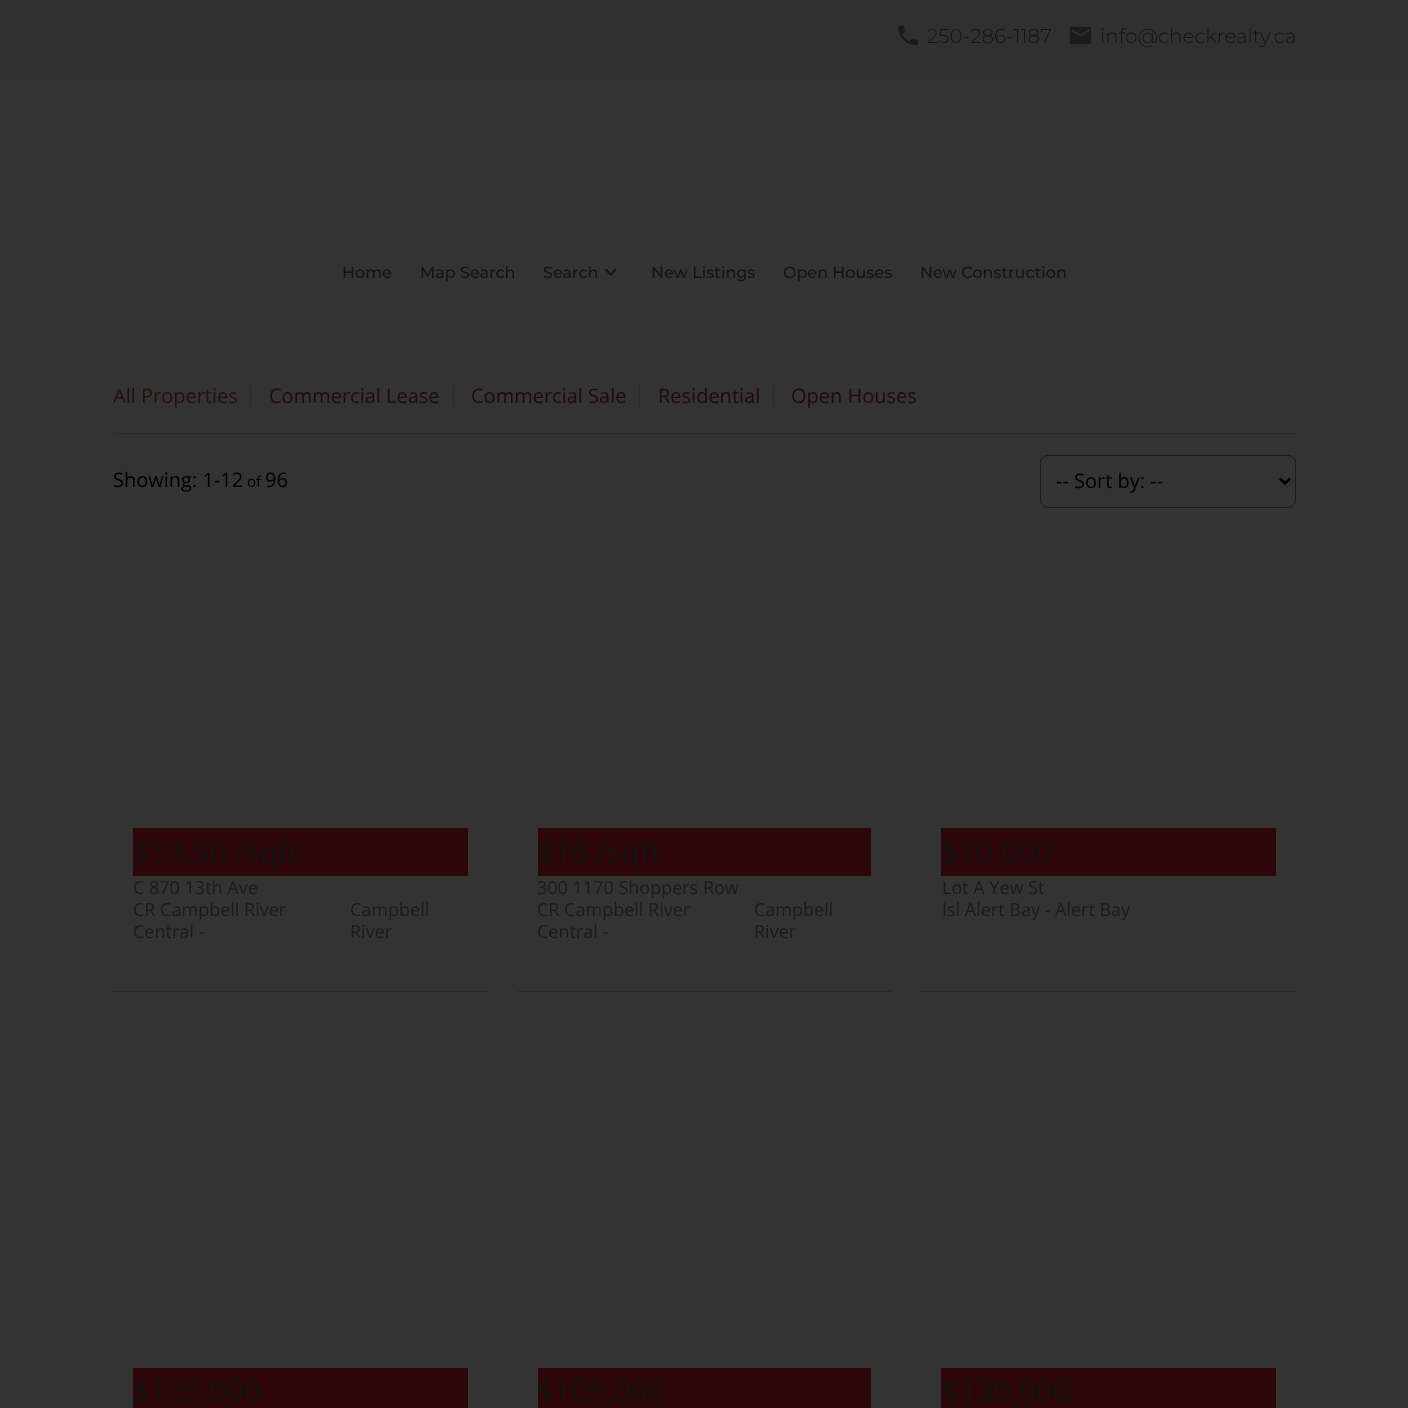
<svg xmlns="http://www.w3.org/2000/svg" xmlns:xlink="http://www.w3.org/1999/xlink" width="1408" height="1408" viewBox="0 0 1408 1408">
<style>
.cls-1{font:300 20px Montserrat;fill:#141414}
.cls-2{font:500 16px Montserrat;fill:#141414}
.cls-3{font:20px Open Sans;fill:#290e0e}
.cls-4{font:20px Open Sans;fill:#230909}
.cls-5{font:20px Open Sans;fill:#000000}
.cls-6{font:15px Open Sans;fill:#000000}
.cls-7{font:30px Open Sans;fill:#141414}
.cls-8{font:18px Open Sans;fill:#1b1b1b}
</style>
<defs>
<clipPath id="clip1"><path d="M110 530H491V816H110ZM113 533H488V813H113Z" clip-rule="evenodd"/></clipPath>
<clipPath id="clip2"><path d="M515 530H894V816H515ZM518 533H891V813H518Z" clip-rule="evenodd"/></clipPath>
<clipPath id="clip3"><path d="M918 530H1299V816H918ZM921 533H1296V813H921Z" clip-rule="evenodd"/></clipPath>
<clipPath id="clip4"><path d="M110 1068H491V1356H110ZM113 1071H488V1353H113Z" clip-rule="evenodd"/></clipPath>
<clipPath id="clip5"><path d="M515 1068H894V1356H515ZM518 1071H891V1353H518Z" clip-rule="evenodd"/></clipPath>
<clipPath id="clip6"><path d="M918 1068H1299V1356H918ZM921 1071H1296V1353H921Z" clip-rule="evenodd"/></clipPath>
</defs>
<rect width="100%" height="100%" fill="#333333"/>
<rect fill="#303030" x="0" y="0" width="1408" height="73"/>
<image xlink:href="image0.png" x="898" y="25" width="20" height="21"/>
<image xlink:href="image1.png" x="1069" y="26" width="23" height="19"/>
<image xlink:href="image2.png" x="604" y="268" width="13" height="8"/>
<rect fill="#2c2c2c" x="250" y="386" width="1" height="20"/>
<rect fill="#2c2c2c" x="453" y="386" width="1" height="20"/>
<rect fill="#2c2c2c" x="639" y="386" width="1" height="20"/>
<rect fill="#2c2c2c" x="773" y="386" width="1" height="20"/>
<rect fill="#2c2c2c" x="113" y="433" width="1183" height="1"/>
<rect fill="none" stroke="#1b1b1b" x="1040.5" y="455.5" width="255" height="52" rx="7.5"/>
<path fill="none" stroke="#000000" stroke-width="2.5" d="M1280 478.5L1285 483.5L1290 478.5"/>
<g clip-path="url(#clip1)">
<rect fill="#141414" filter="blur(0.5px)" x="113" y="533" width="375" height="280"/>
</g>
<rect fill="#2c0609" x="133" y="828" width="335" height="48"/>
<rect fill="#282828" x="113" y="991" width="375" height="1"/>
<g clip-path="url(#clip2)">
<rect fill="#141414" filter="blur(0.5px)" x="518" y="533" width="373" height="280"/>
</g>
<rect fill="#2c0609" x="538" y="828" width="333" height="48"/>
<rect fill="#282828" x="518" y="991" width="373" height="1"/>
<g clip-path="url(#clip3)">
<rect fill="#141414" filter="blur(0.5px)" x="921" y="533" width="375" height="280"/>
</g>
<rect fill="#2c0609" x="941" y="828" width="335" height="48"/>
<rect fill="#282828" x="921" y="991" width="375" height="1"/>
<g clip-path="url(#clip4)">
<rect fill="#141414" filter="blur(0.5px)" x="113" y="1071" width="375" height="282"/>
</g>
<rect fill="#2c0609" x="133" y="1368" width="335" height="40"/>
<g clip-path="url(#clip5)">
<rect fill="#141414" filter="blur(0.5px)" x="518" y="1071" width="373" height="282"/>
</g>
<rect fill="#2c0609" x="538" y="1368" width="333" height="40"/>
<g clip-path="url(#clip6)">
<rect fill="#141414" filter="blur(0.5px)" x="921" y="1071" width="375" height="282"/>
</g>
<rect fill="#2c0609" x="941" y="1368" width="335" height="40"/>
<text class="cls-1" x="927" y="43">250-286-1187</text>
<text class="cls-1" x="1100" y="43">info@checkrealty.ca</text>
<text class="cls-2" x="342" y="278">Home</text>
<text class="cls-2" x="420" y="278">Map Search</text>
<text class="cls-2" x="543" y="278">Search</text>
<text class="cls-2" x="651" y="278">New Listings</text>
<text class="cls-2" x="783" y="278">Open Houses</text>
<text class="cls-2" x="920" y="278">New Construction</text>
<text class="cls-3" x="113" y="403">All Properties</text>
<text class="cls-4" x="269" y="403">Commercial Lease</text>
<text class="cls-4" x="471" y="403">Commercial Sale</text>
<text class="cls-4" x="658" y="403">Residential</text>
<text class="cls-4" x="791" y="403">Open Houses</text>
<text class="cls-5" x="113" y="487">Showing: 1-12</text>
<text class="cls-6" x="247" y="487">of</text>
<text class="cls-5" x="265" y="487">96</text>
<text class="cls-5" x="1056" y="488">-- Sort by: --</text>
<text class="cls-7" x="133" y="863">$13.50 /sqft</text>
<text class="cls-8"><tspan x="133" y="894">C 870 13th Ave</tspan><tspan x="133" y="916">CR Campbell River</tspan><tspan x="133" y="938">Central -</tspan></text>
<text class="cls-8"><tspan x="350" y="916">Campbell</tspan><tspan x="350" y="938">River</tspan></text>
<text class="cls-7" x="537" y="863">$16 /sqft</text>
<text class="cls-8"><tspan x="537" y="894">300 1170 Shoppers Row</tspan><tspan x="537" y="916">CR Campbell River</tspan><tspan x="537" y="938">Central -</tspan></text>
<text class="cls-8"><tspan x="754" y="916">Campbell</tspan><tspan x="754" y="938">River</tspan></text>
<text class="cls-7" x="942" y="863">$70,000</text>
<text class="cls-8"><tspan x="942" y="894">Lot A Yew St</tspan><tspan x="942" y="916">Isl Alert Bay -</tspan></text>
<text class="cls-8" x="1055" y="916">Alert Bay</text>
<text class="cls-7" x="133" y="1402">$105,000</text>
<text class="cls-7" x="537" y="1402">$105,000</text>
<text class="cls-7" x="942" y="1402">$130,000</text>
</svg>
